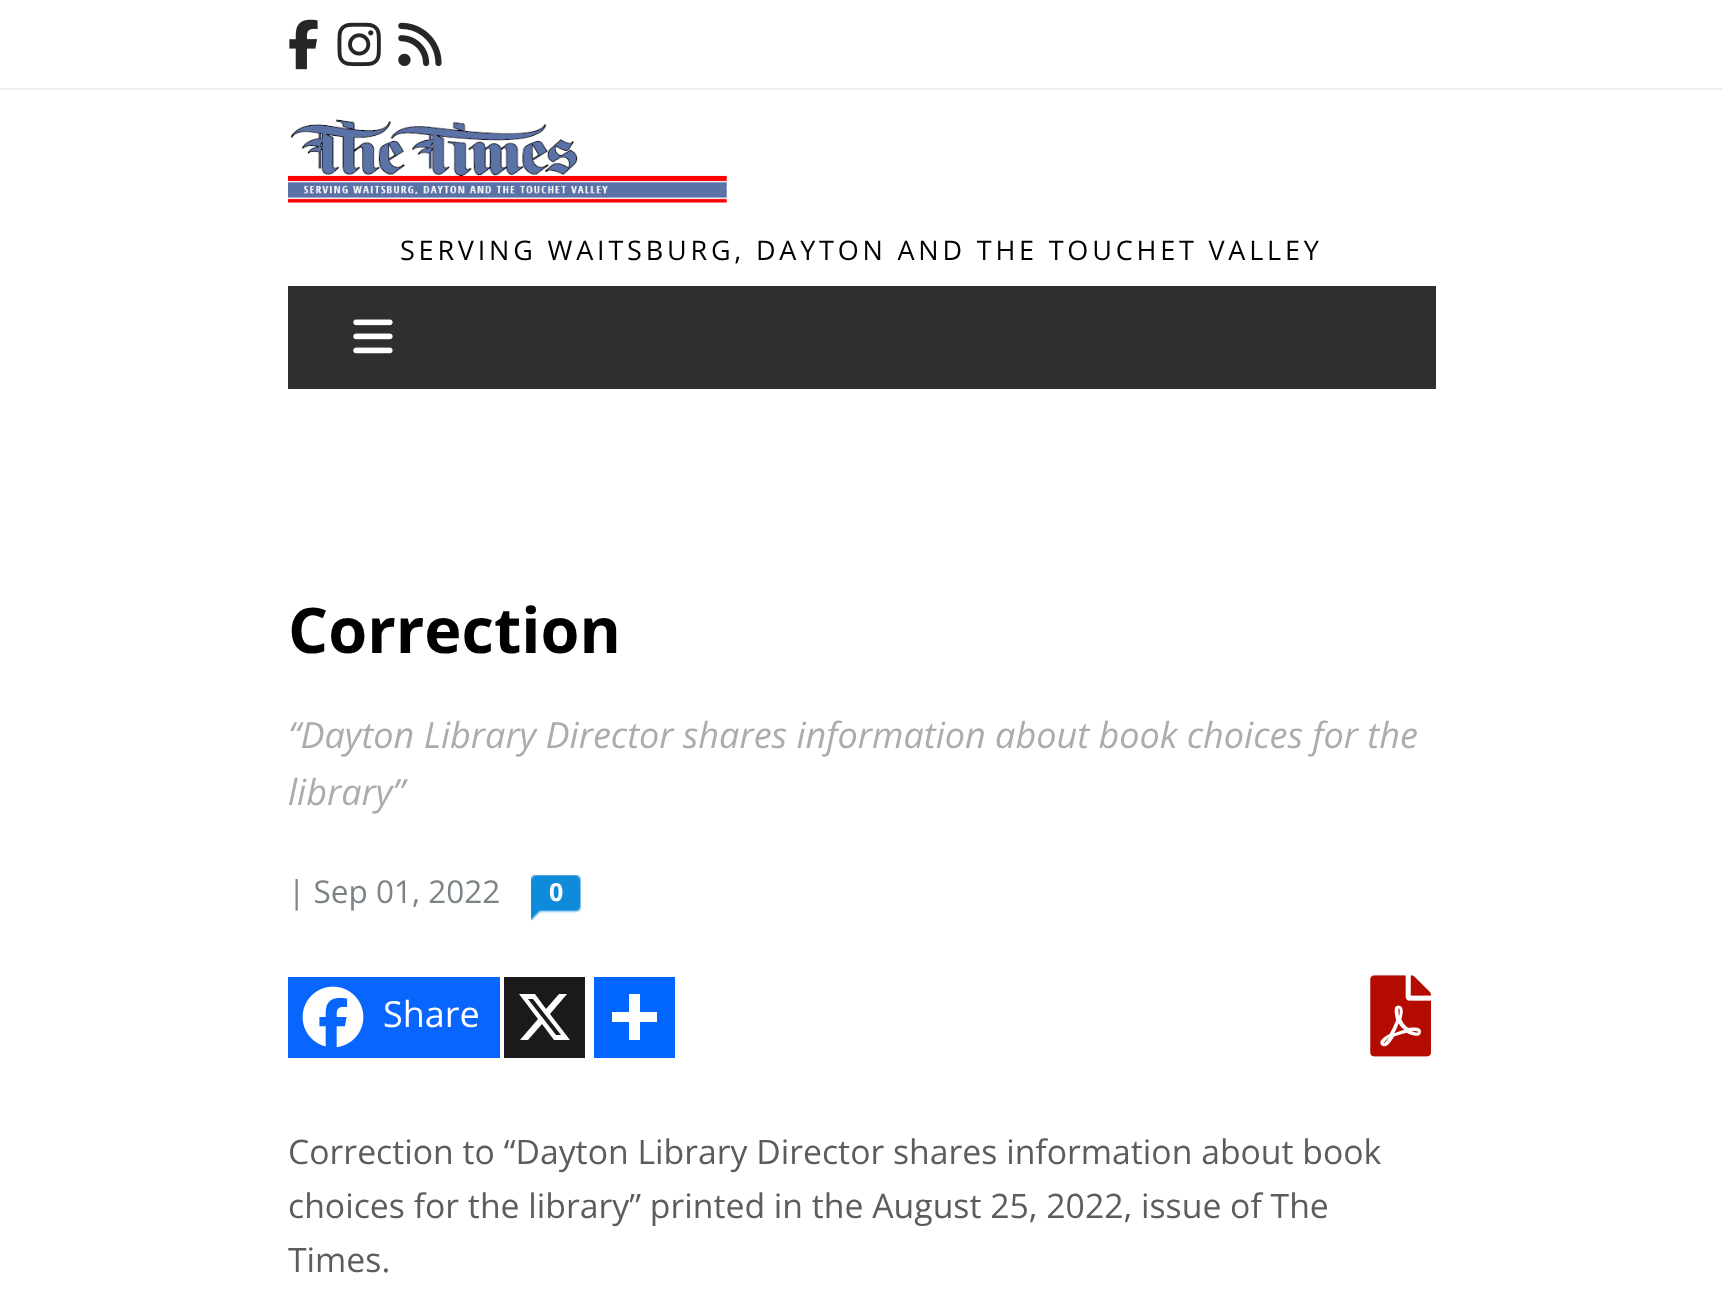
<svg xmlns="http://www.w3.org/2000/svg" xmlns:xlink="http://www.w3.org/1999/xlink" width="1722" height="1315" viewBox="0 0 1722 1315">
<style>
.cls-1{font:27px Open Sans;letter-spacing:3.8px;fill:#000000}
.cls-2{font:bold 63px Open Sans;fill:#000000}
.cls-3{font:italic 36px Open Sans;fill:#acacac}
.cls-4{font:31.5px Open Sans;fill:#7c8387}
.cls-5{font:bold 25px Open Sans;fill:#ffffff}
.cls-6{font:36px Open Sans;fill:#ffffff}
.cls-7{font:33.75px Open Sans;fill:#5c5c5c}
</style>
<rect width="100%" height="100%" fill="#ffffff"/>
<rect fill="#ededed" x="0" y="88" width="1722" height="2"/>
<image xlink:href="image0.png" x="289" y="19" width="29" height="51"/>
<image xlink:href="image1.png" x="337" y="22" width="44" height="45"/>
<image xlink:href="image2.png" x="398" y="22" width="44" height="45"/>
<image xlink:href="image3.png" x="288" y="119" width="439" height="84"/>
<rect fill="#312e2f" x="288" y="286" width="1148" height="103"/>
<image xlink:href="image4.png" x="353" y="319" width="40" height="35"/>
<image xlink:href="image5.png" x="531" y="875" width="50" height="46"/>
<rect fill="#0866ff" x="288" y="977" width="212" height="81"/>
<image xlink:href="image6.png" x="302" y="986" width="62" height="62"/>
<rect fill="#1a1a1a" x="504" y="977" width="81" height="81"/>
<path fill="#ffffff" d="M559 994H567L550 1014L570 1040H554L542 1024L528 1040H520L538 1019L519 994H535L546 1009ZM556 1035H561L533 999H528Z"/>
<rect fill="#0166ff" x="594" y="977" width="81" height="81"/>
<rect fill="#ffffff" x="629" y="994" width="11" height="46"/>
<rect fill="#ffffff" x="612" y="1012" width="45" height="10"/>
<image xlink:href="image7.png" x="1370" y="975" width="61" height="82"/>
<text class="cls-1" x="400" y="260">SERVING WAITSBURG, DAYTON AND THE TOUCHET VALLEY</text>
<text class="cls-2" x="288" y="653">Correction</text>
<text class="cls-3"><tspan x="288" y="748">“Dayton Library Director shares information about book choices for the</tspan><tspan x="288" y="805">library”</tspan></text>
<text class="cls-4" x="288" y="903">| Sep 01, 2022</text>
<text class="cls-5" x="549" y="901">0</text>
<text class="cls-6" x="383" y="1027">Share</text>
<text class="cls-7"><tspan x="288" y="1164">Correction to “Dayton Library Director shares information about book</tspan><tspan x="288" y="1218">choices for the library” printed in the August 25, 2022, issue of The</tspan><tspan x="288" y="1272">Times.</tspan></text>
</svg>
